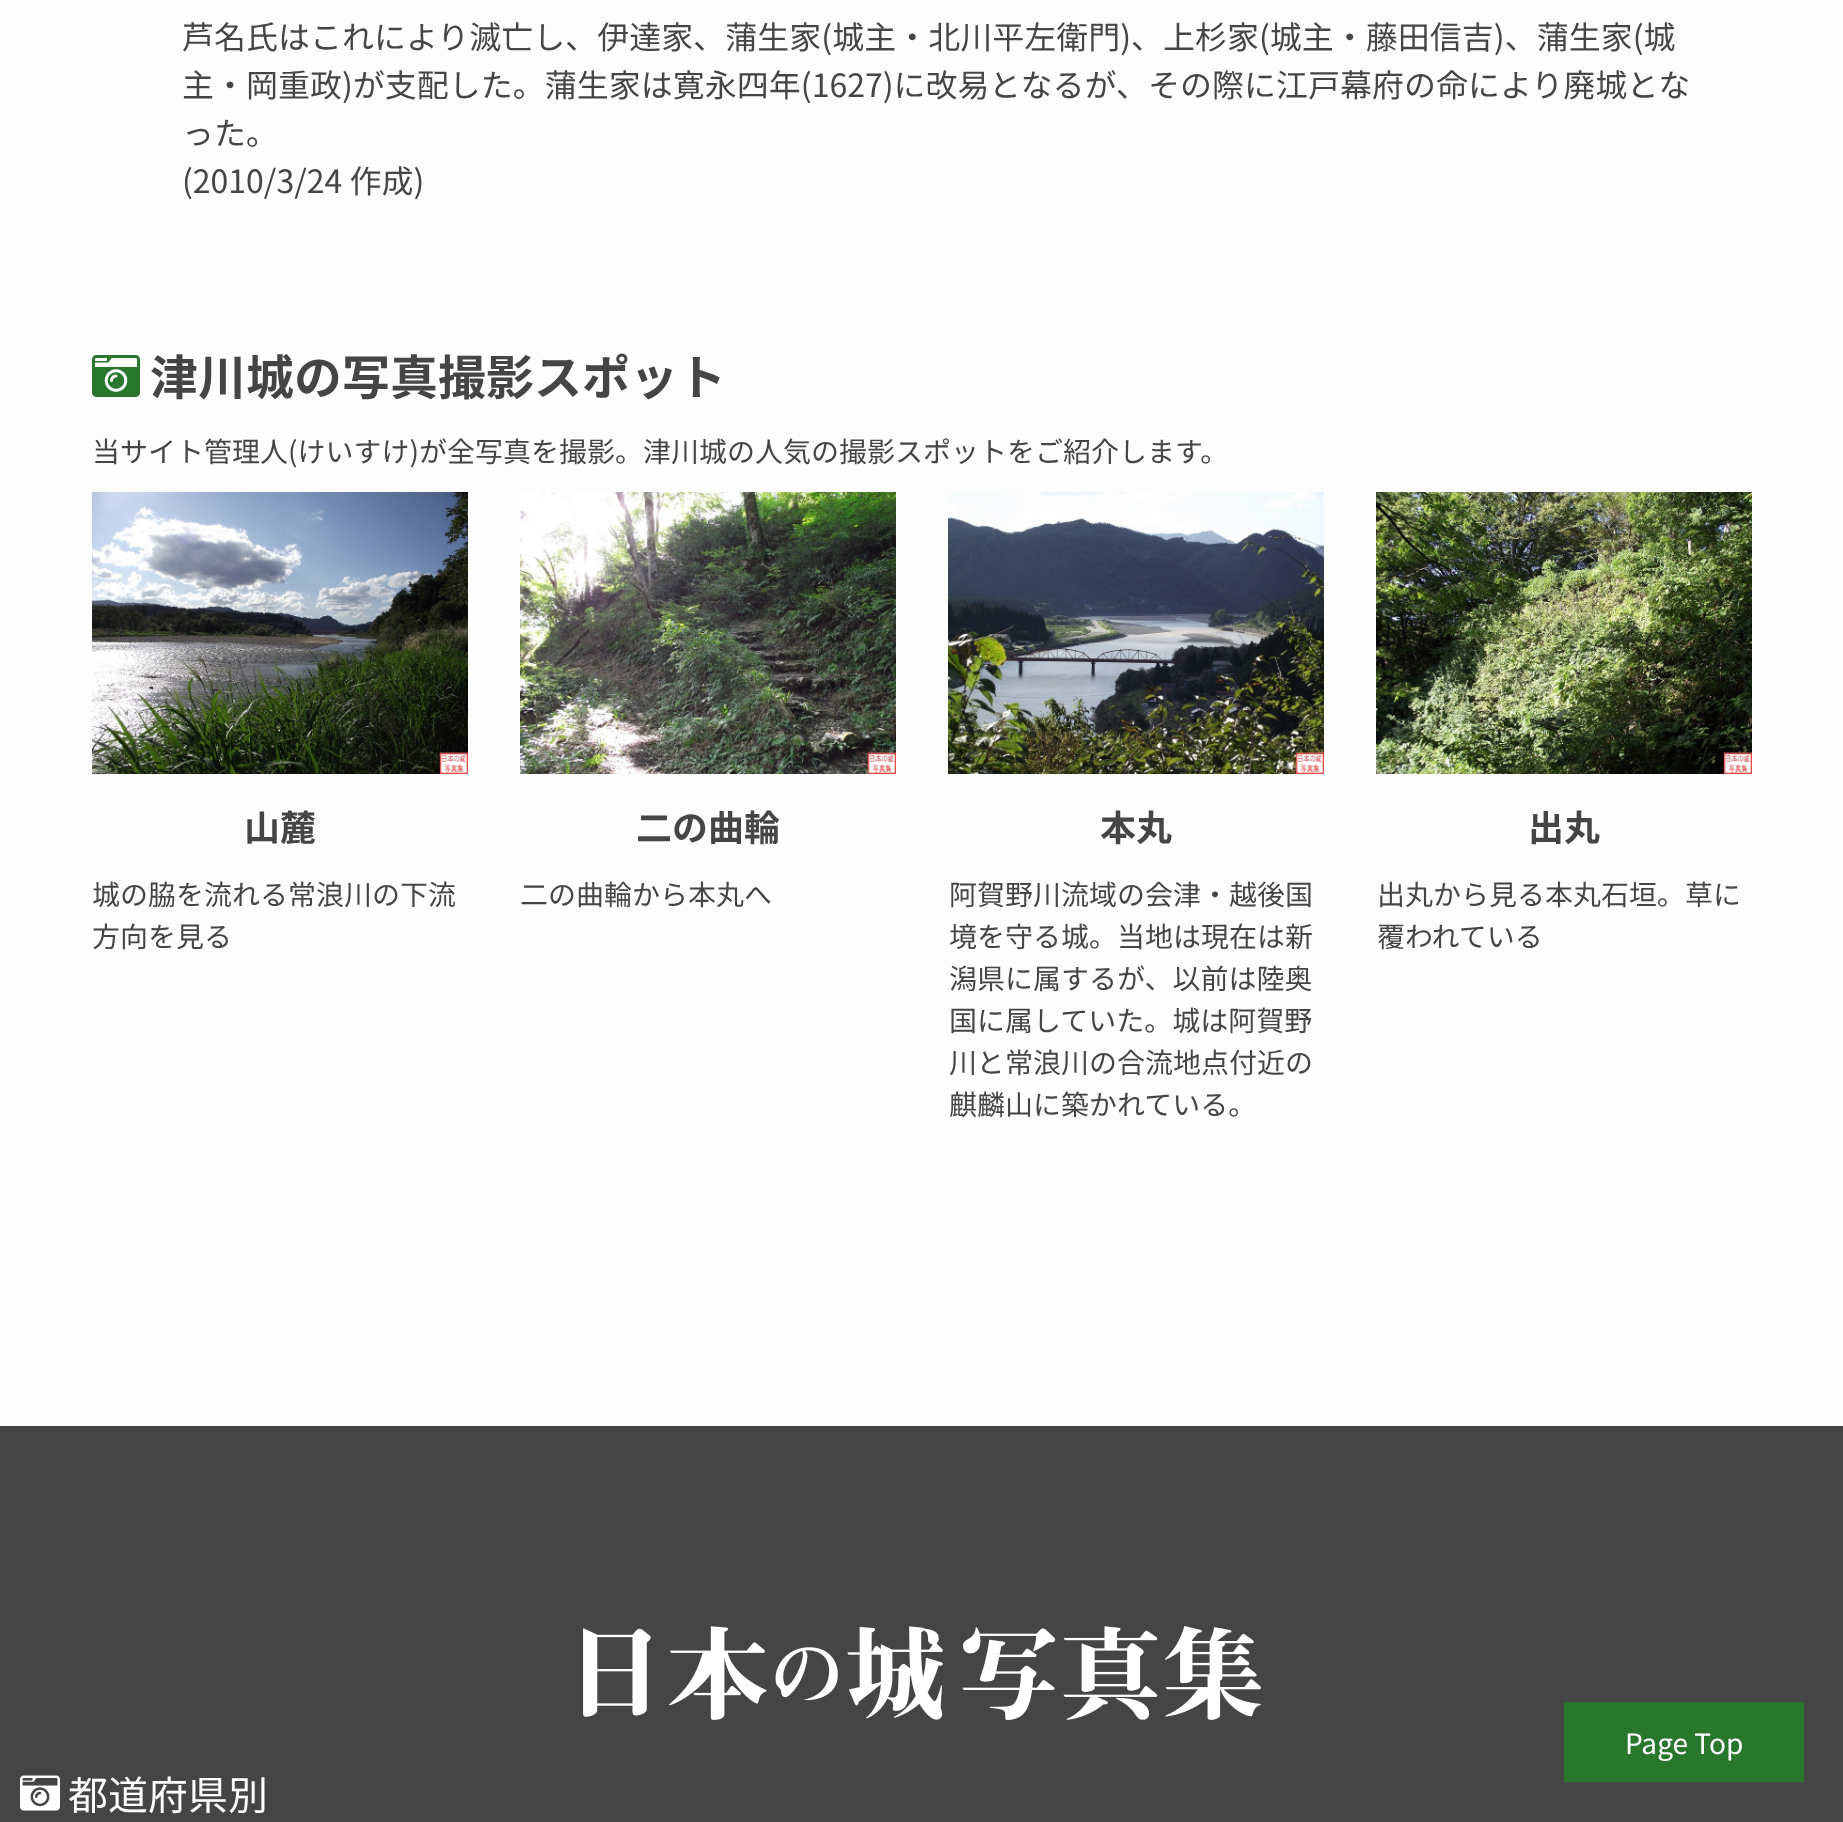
<svg xmlns="http://www.w3.org/2000/svg" xmlns:xlink="http://www.w3.org/1999/xlink" width="1843" height="1822" viewBox="0 0 1843 1822">
<style>
.cls-1{font:32px Noto Sans JP;fill:#454545}
.cls-2{font:bold 48px Noto Sans JP;fill:#454545}
.cls-3{font:28px Noto Sans JP;fill:#454545}
.cls-4{font:bold 36px Noto Sans JP;fill:#454545}
.cls-5{font:28px Noto Sans JP;fill:#ffffff}
.cls-6{font:40px Noto Sans JP;fill:#ffffff}
</style>
<rect width="100%" height="100%" fill="#fdfdfd"/>
<image xlink:href="image0.png" x="92" y="355" width="48" height="42"/>
<image xlink:href="image1.png" x="92" y="492" width="376" height="282"/>
<image xlink:href="image2.png" x="520" y="492" width="376" height="282"/>
<image xlink:href="image3.png" x="948" y="492" width="376" height="282"/>
<image xlink:href="image4.png" x="1376" y="492" width="376" height="282"/>
<rect fill="#454545" x="0" y="1426" width="1843" height="396"/>
<rect fill="#29762d" x="1564" y="1702" width="240" height="80"/>
<image xlink:href="image5.png" x="583" y="1626" width="678" height="94"/>
<image xlink:href="image6.png" x="20" y="1775" width="40" height="36"/>
<text class="cls-1"><tspan x="182" y="49">芦名氏はこれにより滅亡し、伊達家、蒲生家(城主・北川平左衛門)、上杉家(城主・藤田信吉)、蒲生家(城</tspan><tspan x="182" y="97">主・岡重政)が支配した。蒲生家は寛永四年(1627)に改易となるが、その際に江戸幕府の命により廃城とな</tspan><tspan x="182" y="145">った。</tspan><tspan x="182" y="193">(2010/3/24 作成)</tspan></text>
<text class="cls-2" x="150" y="395">津川城の写真撮影スポット</text>
<text class="cls-3" x="92" y="462">当サイト管理人(けいすけ)が全写真を撮影。津川城の人気の撮影スポットをご紹介します。</text>
<text class="cls-4" x="244" y="841">山麓</text>
<text class="cls-3"><tspan x="92" y="905">城の脇を流れる常浪川の下流</tspan><tspan x="92" y="947">方向を見る</tspan></text>
<text class="cls-4" x="636" y="841">二の曲輪</text>
<text class="cls-3" x="520" y="905">二の曲輪から本丸へ</text>
<text class="cls-4" x="1100" y="841">本丸</text>
<text class="cls-3"><tspan x="949" y="905">阿賀野川流域の会津・越後国</tspan><tspan x="949" y="947">境を守る城。当地は現在は新</tspan><tspan x="949" y="989">潟県に属するが、以前は陸奥</tspan><tspan x="949" y="1031">国に属していた。城は阿賀野</tspan><tspan x="949" y="1073">川と常浪川の合流地点付近の</tspan><tspan x="949" y="1115">麒麟山に築かれている。</tspan></text>
<text class="cls-4" x="1528" y="841">出丸</text>
<text class="cls-3"><tspan x="1377" y="905">出丸から見る本丸石垣。草に</tspan><tspan x="1377" y="947">覆われている</tspan></text>
<text class="cls-5" x="1625" y="1754">Page Top</text>
<text class="cls-6" x="68" y="1810">都道府県別</text>
</svg>
